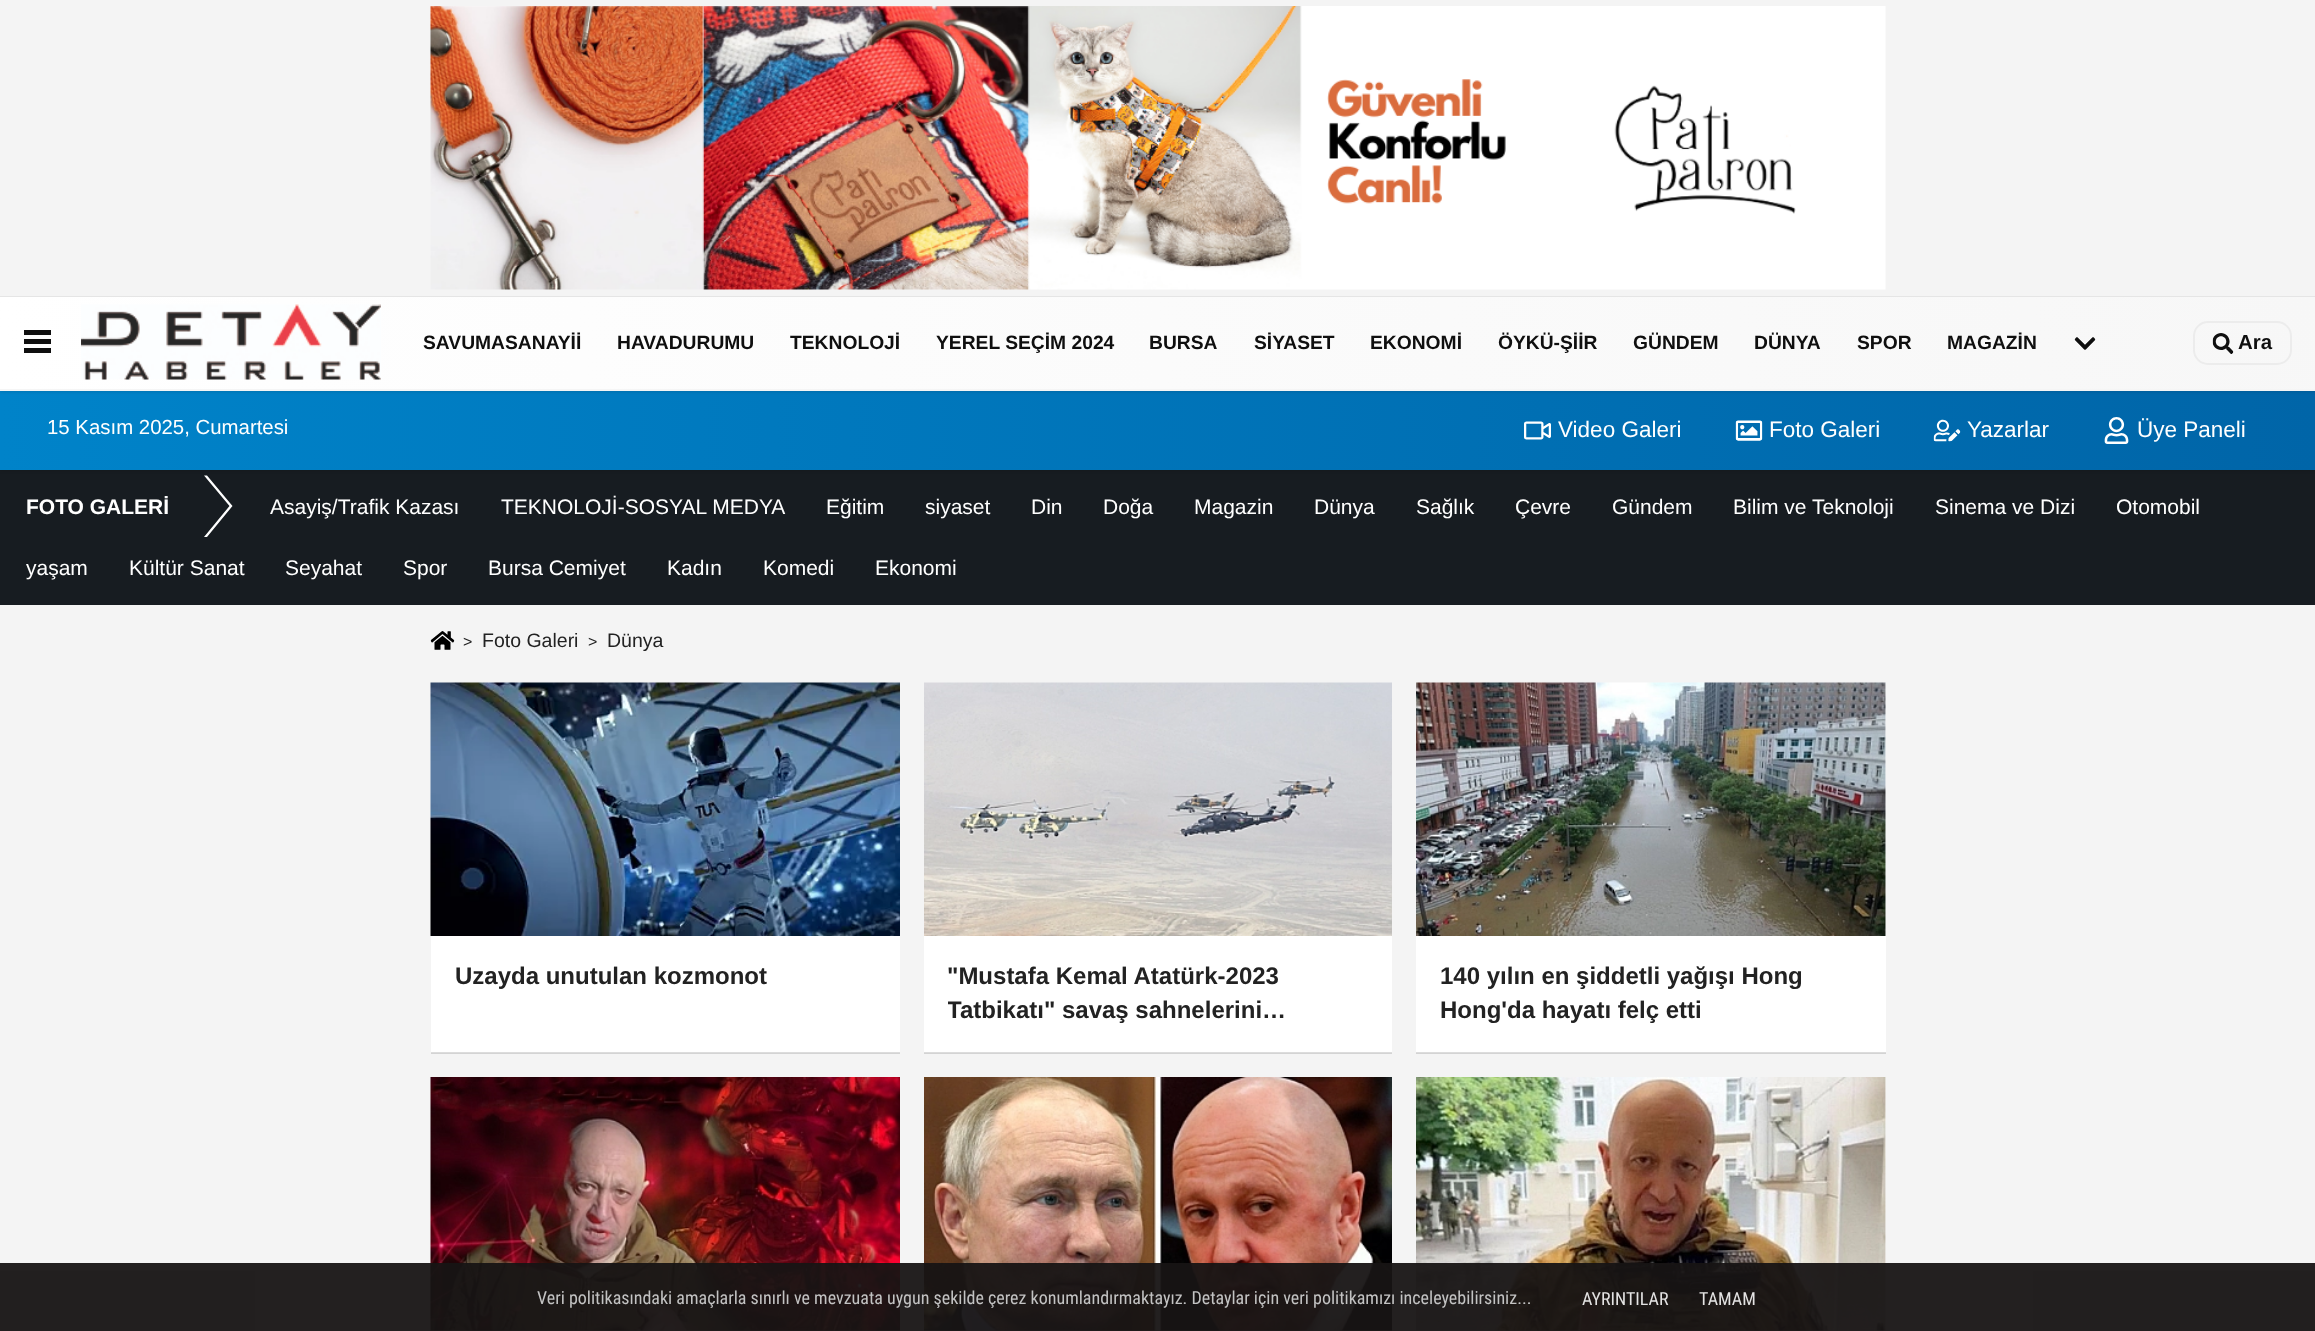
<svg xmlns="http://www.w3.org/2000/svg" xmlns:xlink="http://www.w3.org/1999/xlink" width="2315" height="1331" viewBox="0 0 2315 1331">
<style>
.cls-1{font:bold 19.25px Liberation Sans;fill:#0f0f0f}
.cls-2{font:bold 20.4px Liberation Sans;fill:#0f0f0f}
.cls-3{font:20.4px Liberation Sans;fill:#ffffff}
.cls-4{font:22.5px Liberation Sans;fill:#ffffff}
.cls-5{font:bold 21px Liberation Sans;fill:#ffffff}
.cls-6{font:21px Liberation Sans;fill:#ffffff}
.cls-7{font:16px Liberation Sans;fill:#222222}
.cls-8{font:19.5px Liberation Sans;fill:#222222}
.cls-9{font:bold 24px Liberation Sans;fill:#222222}
.cls-10{font:18px Roboto Condensed;fill:#c3c3c3}
.cls-11{font:18px Roboto Condensed;fill:#e4e3e3}
</style>
<defs>
<linearGradient id="g1" gradientUnits="userSpaceOnUse" x1="0" y1="430" x2="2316" y2="430"><stop offset="0" stop-color="#0083c9"/><stop offset="1" stop-color="#0065a8"/></linearGradient>
<radialGradient id="g2" gradientUnits="userSpaceOnUse" cx="2316" cy="297" r="2318"><stop offset="0" stop-color="#f7f7f7"/><stop offset="1" stop-color="#ffffff"/></radialGradient>
<clipPath id="clip1"><rect x="948" y="960" width="420" height="68"/></clipPath>
</defs>
<rect width="100%" height="100%" fill="#f4f4f4"/>
<rect fill="#d3d3d3" x="1416" y="1053" width="470" height="1"/>
<rect fill="#d3d3d3" x="924" y="1053" width="468" height="1"/>
<rect fill="#d3d3d3" x="431" y="1053" width="469" height="1"/>
<image xlink:href="image0.png" x="430" y="6" width="1456" height="284"/>
<rect fill="#e6e6e6" x="0" y="296" width="2315" height="1"/>
<rect fill="#171c21" x="0" y="470" width="2315" height="135"/>
<rect fill="#000000" fill-opacity="0.1" filter="blur(1.5px)" x="0" y="392" width="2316" height="79"/>
<rect fill="url(#g1)" x="0" y="391" width="2315" height="79"/>
<rect fill="#000000" fill-opacity="0.1" filter="blur(1.5px)" x="0" y="299" width="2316" height="93"/>
<rect fill="url(#g2)" x="0" y="297" width="2315" height="92"/>
<rect fill="#f5f5f5" x="0" y="389" width="2315" height="2"/>
<rect fill="#0f0f0f" x="24" y="330" width="27" height="5"/>
<rect fill="#0f0f0f" x="24" y="339" width="27" height="5"/>
<rect fill="#0f0f0f" x="24" y="348" width="27" height="5"/>
<image xlink:href="image1.png" x="81" y="304" width="300" height="76"/>
<image xlink:href="image2.png" x="2074" y="337" width="22" height="13"/>
<rect fill="none" stroke="#ececec" stroke-width="2" x="2194" y="322" width="97" height="42" rx="14"/>
<image xlink:href="image3.png" x="2212" y="333" width="22" height="21"/>
<image xlink:href="image4.png" x="1524" y="421" width="27" height="19"/>
<image xlink:href="image5.png" x="1735" y="420" width="28" height="21"/>
<image xlink:href="image6.png" x="1933" y="419" width="28" height="23"/>
<image xlink:href="image7.png" x="2104" y="417" width="25" height="27"/>
<path fill="#ffffff" d="M204 475.5H207L232.5 506H229.5ZM229.5 506H232.5L207 537H204Z"/>
<image xlink:href="image8.png" x="430" y="631" width="25" height="19"/>
<rect fill="#ffffff" x="431" y="936" width="469" height="116"/>
<rect fill="#dcdcdc" x="431" y="1052" width="469" height="1"/>
<image xlink:href="image9.png" x="430" y="682" width="470" height="254"/>
<rect fill="#ffffff" x="924" y="936" width="468" height="116"/>
<rect fill="#dcdcdc" x="924" y="1052" width="468" height="1"/>
<image xlink:href="image10.png" x="924" y="682" width="468" height="254"/>
<rect fill="#ffffff" x="1416" y="683" width="470" height="369"/>
<rect fill="#dcdcdc" x="1416" y="1052" width="470" height="1"/>
<image xlink:href="image11.png" x="1416" y="682" width="470" height="254"/>
<rect fill="#ffffff" x="431" y="1330" width="469" height="1"/>
<image xlink:href="image12.png" x="430" y="1077" width="470" height="254"/>
<rect fill="#ffffff" x="924" y="1330" width="468" height="1"/>
<image xlink:href="image13.png" x="924" y="1077" width="468" height="254"/>
<rect fill="#ffffff" x="1416" y="1077" width="470" height="254"/>
<image xlink:href="image14.png" x="1416" y="1077" width="470" height="254"/>
<rect fill="#171414" fill-opacity="0.95" x="0" y="1263" width="2315" height="68"/>
<text class="cls-1" x="423" y="349">SAVUMASANAYİİ</text>
<text class="cls-1" x="617" y="349">HAVADURUMU</text>
<text class="cls-1" x="790" y="349">TEKNOLOJİ</text>
<text class="cls-1" x="936" y="349">YEREL SEÇİM 2024</text>
<text class="cls-1" x="1149" y="349">BURSA</text>
<text class="cls-1" x="1254" y="349">SİYASET</text>
<text class="cls-1" x="1370" y="349">EKONOMİ</text>
<text class="cls-1" x="1498" y="349">ÖYKÜ-ŞİİR</text>
<text class="cls-1" x="1633" y="349">GÜNDEM</text>
<text class="cls-1" x="1754" y="349">DÜNYA</text>
<text class="cls-1" x="1857" y="349">SPOR</text>
<text class="cls-1" x="1947" y="349">MAGAZİN</text>
<text class="cls-2" x="2238" y="349">Ara</text>
<text class="cls-3" x="47" y="434">15 Kasım 2025, Cumartesi</text>
<text class="cls-4" x="1558" y="437">Video Galeri</text>
<text class="cls-4" x="1769" y="437">Foto Galeri</text>
<text class="cls-4" x="1967" y="437">Yazarlar</text>
<text class="cls-4" x="2137" y="437">Üye Paneli</text>
<text class="cls-5" x="26" y="514">FOTO GALERİ</text>
<text class="cls-6" x="270" y="514">Asayiş/Trafik Kazası</text>
<text class="cls-6" x="501" y="514">TEKNOLOJİ-SOSYAL MEDYA</text>
<text class="cls-6" x="826" y="514">Eğitim</text>
<text class="cls-6" x="925" y="514">siyaset</text>
<text class="cls-6" x="1031" y="514">Din</text>
<text class="cls-6" x="1103" y="514">Doğa</text>
<text class="cls-6" x="1194" y="514">Magazin</text>
<text class="cls-6" x="1314" y="514">Dünya</text>
<text class="cls-6" x="1416" y="514">Sağlık</text>
<text class="cls-6" x="1515" y="514">Çevre</text>
<text class="cls-6" x="1612" y="514">Gündem</text>
<text class="cls-6" x="1733" y="514">Bilim ve Teknoloji</text>
<text class="cls-6" x="1935" y="514">Sinema ve Dizi</text>
<text class="cls-6" x="2116" y="514">Otomobil</text>
<text class="cls-6" x="26" y="575">yaşam</text>
<text class="cls-6" x="129" y="575">Kültür Sanat</text>
<text class="cls-6" x="285" y="575">Seyahat</text>
<text class="cls-6" x="403" y="575">Spor</text>
<text class="cls-6" x="488" y="575">Bursa Cemiyet</text>
<text class="cls-6" x="667" y="575">Kadın</text>
<text class="cls-6" x="763" y="575">Komedi</text>
<text class="cls-6" x="875" y="575">Ekonomi</text>
<text class="cls-7" x="463" y="647">&gt;</text>
<text class="cls-8" x="482" y="647">Foto Galeri</text>
<text class="cls-7" x="588" y="647">&gt;</text>
<text class="cls-8" x="607" y="647">Dünya</text>
<text class="cls-9" x="455" y="984">Uzayda unutulan kozmonot</text>
<text class="cls-9" x="947" y="984">"Mustafa Kemal Atatürk-2023</text>
<g clip-path="url(#clip1)">
<text class="cls-9" x="947" y="1018">Tatbikatı" savaş sahnelerini…</text>
</g>
<text class="cls-9"><tspan x="1440" y="984">140 yılın en şiddetli yağışı Hong</tspan><tspan x="1440" y="1018">Hong'da hayatı felç etti</tspan></text>
<text class="cls-10" x="537" y="1304">Veri politikasındaki amaçlarla sınırlı ve mevzuata uygun şekilde çerez konumlandırmaktayız. Detaylar için veri politikamızı inceleyebilirsiniz...</text>
<text class="cls-11" x="1582" y="1305">AYRINTILAR</text>
<text class="cls-11" x="1699" y="1305">TAMAM</text>
</svg>
